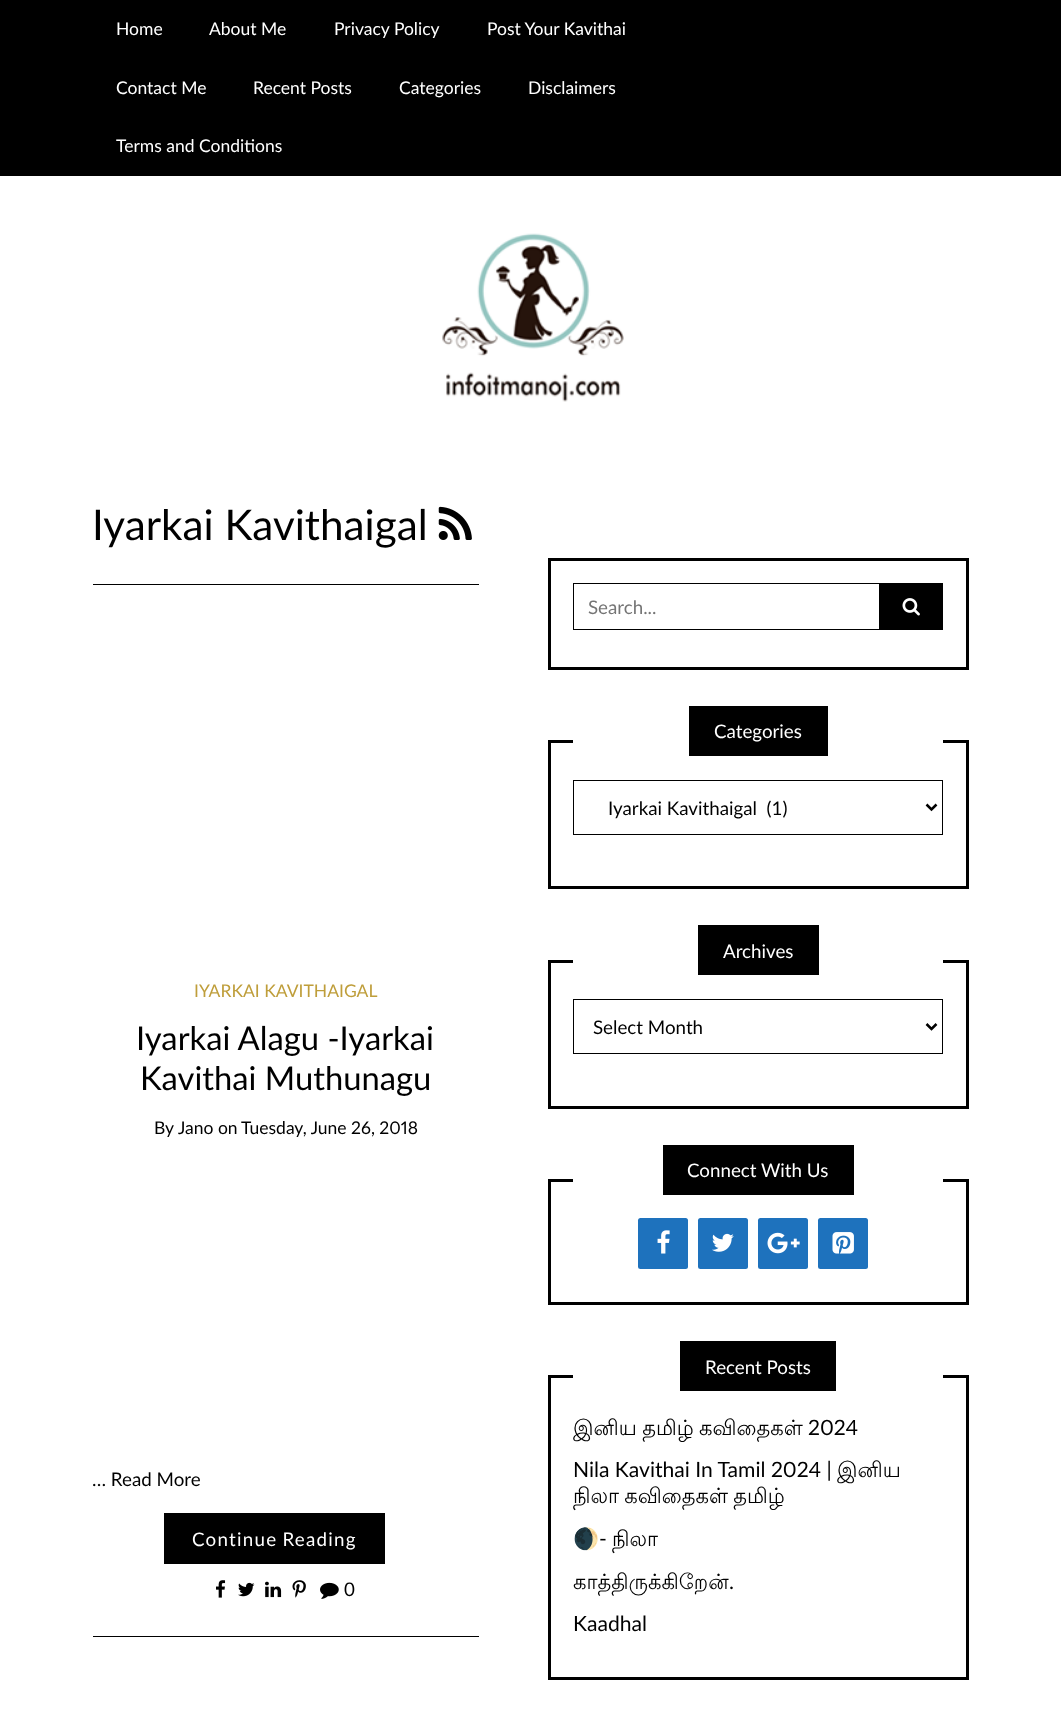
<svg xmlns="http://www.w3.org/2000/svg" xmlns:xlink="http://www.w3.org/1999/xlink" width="1061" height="1709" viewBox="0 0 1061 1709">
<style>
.cls-1{font:17.5px Lato;fill:#ffffff}
.cls-2{font:42.25px Lato;fill:#000000}
.cls-3{font:17.5px Lato;fill:#bf9e3b}
.cls-4{font:32.75px Lato;fill:#000000}
.cls-5{font:17.5px Lato;fill:#000000}
.cls-6{font:17.5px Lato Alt;fill:#000000}
.cls-7{font:18.75px Lato;fill:#000000}
.cls-8{font:18.75px Lato;letter-spacing:1.25px;fill:#ffffff}
.cls-9{font:18.75px Lato;fill:#757575}
.cls-10{font:18.75px Lato;fill:#ffffff}
.cls-11{font:21.1px Lohit Tamil;fill:#000000}
.cls-12{font:21.1px Lato Alt;fill:#000000}
.cls-13{font:21.1px Noto Color Emoji;fill:#000000}
.cls-14{font:21.1px Lato;fill:#000000}
</style>
<rect width="100%" height="100%" fill="#ffffff"/>
<rect fill="#000000" x="0" y="0" width="1061" height="176"/>
<image xlink:href="image0.png" x="442" y="233" width="182" height="169"/>
<rect fill="#000000" x="93" y="584" width="386" height="1"/>
<image xlink:href="image1.png" x="438" y="506" width="34" height="34"/>
<rect fill="#000000" x="164" y="1513" width="221" height="51"/>
<image xlink:href="image2.png" x="216" y="1580" width="10" height="18"/>
<image xlink:href="image3.png" x="238" y="1582" width="17" height="15"/>
<image xlink:href="image4.png" x="265" y="1581" width="17" height="17"/>
<image xlink:href="image5.png" x="292" y="1580" width="14" height="18"/>
<image xlink:href="image6.png" x="320" y="1582" width="19" height="17"/>
<rect fill="#000000" x="93" y="1636" width="386" height="1"/>
<rect fill="none" stroke="#000000" stroke-width="3" x="549.5" y="559.5" width="418" height="109"/>
<rect fill="none" stroke="#000000" x="573.5" y="583.5" width="369" height="46"/>
<rect fill="#000000" x="879" y="584" width="63" height="45"/>
<image xlink:href="image7.png" x="902" y="598" width="18" height="18"/>
<rect fill="none" stroke="#000000" stroke-width="3" x="549.5" y="741.5" width="418" height="146"/>
<rect fill="#ffffff" x="573" y="740" width="370" height="3"/>
<rect fill="#000000" x="689" y="706" width="139" height="50"/>
<rect fill="none" stroke="#000000" x="573.5" y="780.5" width="369" height="54"/>
<path fill="none" stroke="#000000" stroke-width="2.5" d="M926.5 804.5L931.5 809.5L936.5 804.5"/>
<rect fill="none" stroke="#000000" stroke-width="3" x="549.5" y="961.5" width="418" height="146"/>
<rect fill="#ffffff" x="573" y="960" width="370" height="3"/>
<rect fill="#000000" x="698" y="925" width="121" height="50"/>
<rect fill="none" stroke="#000000" x="573.5" y="999.5" width="369" height="54"/>
<path fill="none" stroke="#000000" stroke-width="2.5" d="M926.5 1024L931.5 1029L936.5 1024"/>
<rect fill="none" stroke="#000000" stroke-width="3" x="549.5" y="1180.5" width="418" height="123"/>
<rect fill="#ffffff" x="573" y="1179" width="370" height="3"/>
<rect fill="#000000" x="663" y="1145" width="191" height="50"/>
<rect fill="#1e72bd" x="638" y="1218" width="50" height="51" rx="2.5"/>
<image xlink:href="image8.png" x="657" y="1230" width="13" height="24"/>
<rect fill="#1e72bd" x="698" y="1218" width="50" height="51" rx="2.5"/>
<image xlink:href="image9.png" x="712" y="1233" width="22" height="19"/>
<rect fill="#1e72bd" x="758" y="1218" width="50" height="51" rx="2.5"/>
<image xlink:href="image10.png" x="767" y="1232" width="33" height="22"/>
<rect fill="#1e72bd" x="818" y="1218" width="50" height="51" rx="2.5"/>
<image xlink:href="image11.png" x="832" y="1232" width="22" height="22"/>
<rect fill="none" stroke="#000000" stroke-width="3" x="549.5" y="1376.5" width="418" height="302"/>
<rect fill="#ffffff" x="573" y="1375" width="370" height="3"/>
<rect fill="#000000" x="680" y="1341" width="156" height="50"/>
<text class="cls-1" x="116" y="35">Home</text>
<text class="cls-1" x="209" y="35">About Me</text>
<text class="cls-1" x="334" y="35">Privacy Policy</text>
<text class="cls-1" x="487" y="35">Post Your Kavithai</text>
<text class="cls-1" x="116" y="94">Contact Me</text>
<text class="cls-1" x="253" y="94">Recent Posts</text>
<text class="cls-1" x="399" y="94">Categories</text>
<text class="cls-1" x="528" y="94">Disclaimers</text>
<text class="cls-1" x="116" y="152">Terms and Conditions</text>
<text class="cls-2" x="92" y="540">Iyarkai Kavithaigal</text>
<text class="cls-3" x="194" y="997">IYARKAI KAVITHAIGAL</text>
<text class="cls-4" x="136" y="1050">Iyarkai Alagu -Iyarkai</text>
<text class="cls-4" x="140" y="1090">Kavithai Muthunagu</text>
<text class="cls-5" x="154" y="1134">By</text>
<text class="cls-5" x="178" y="1134">Jano on</text>
<text class="cls-6" x="241" y="1134">Tuesday, June 26, 2018</text>
<text class="cls-7" x="92" y="1486">… Read More</text>
<text class="cls-8" x="192" y="1546" word-spacing="-1">Continue Reading</text>
<text class="cls-7" x="344" y="1596">0</text>
<text class="cls-9" x="588" y="614">Search...</text>
<text class="cls-10" x="714" y="738">Categories</text>
<text class="cls-7" xml:space="preserve" x="608" y="815">Iyarkai Kavithaigal  (1)</text>
<text class="cls-10" x="723" y="958">Archives</text>
<text class="cls-7" x="593" y="1034">Select Month</text>
<text class="cls-10" x="687" y="1177">Connect With Us</text>
<text class="cls-10" x="705" y="1374">Recent Posts</text>
<text class="cls-11" x="573" y="1435" word-spacing="-1">இனிய தமிழ் கவிதைகள்</text>
<text class="cls-12" x="808" y="1435">2024</text>
<text class="cls-12" x="573" y="1477">Nila Kavithai In Tamil 2024 |</text>
<text class="cls-11" x="837" y="1477">இனிய</text>
<text class="cls-11" x="573" y="1503" word-spacing="-1">நிலா கவிதைகள் தமிழ்</text>
<text class="cls-13" x="573" y="1546">🌒</text>
<text class="cls-14" x="599" y="1546">-</text>
<text class="cls-11" x="612" y="1546">நிலா</text>
<text class="cls-11" x="573" y="1589">காத்திருக்கிறேன்</text>
<text class="cls-14" x="729" y="1589">.</text>
<text class="cls-14" x="573" y="1631">Kaadhal</text>
</svg>
